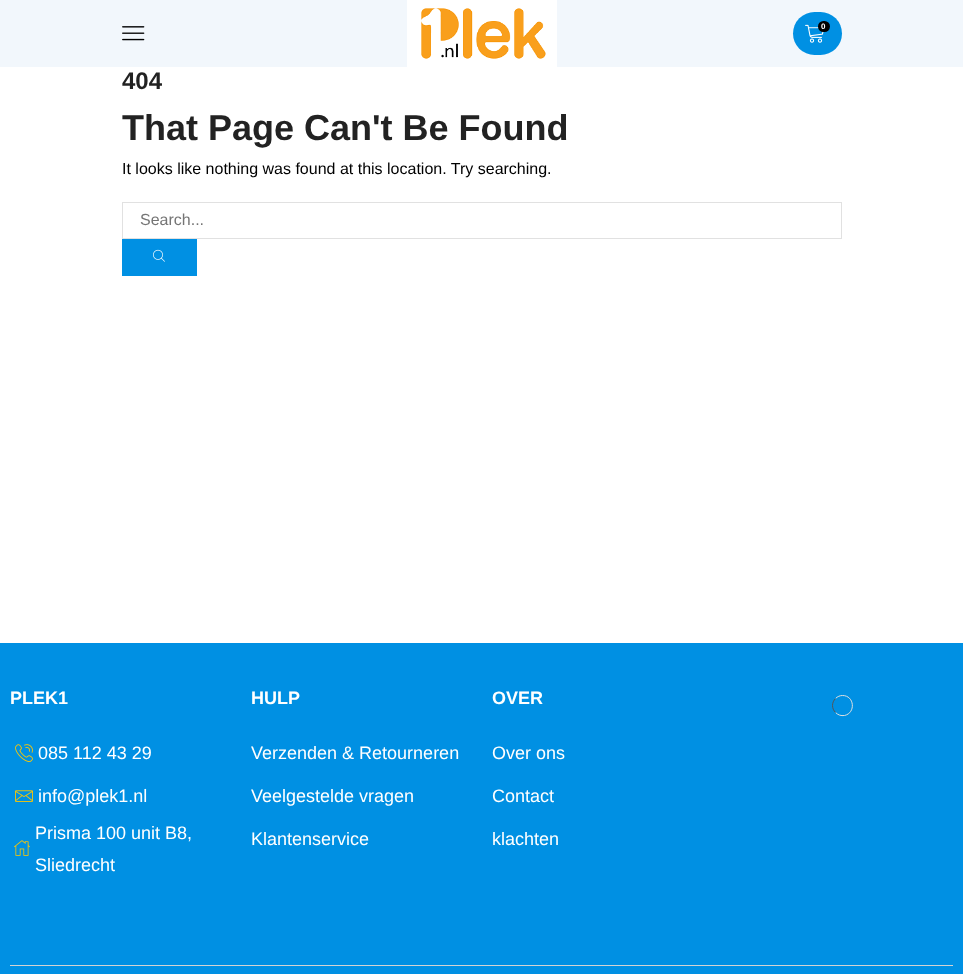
<svg xmlns="http://www.w3.org/2000/svg" xmlns:xlink="http://www.w3.org/1999/xlink" width="963" height="974" viewBox="0 0 963 974">
<style>
.cls-1{font:bold 8px Liberation Sans;fill:#ffffff}
.cls-2{font:bold 24px Liberation Sans;fill:#222222}
.cls-3{font:bold 36px Liberation Sans;fill:#222222}
.cls-4{font:16px Liberation Sans;fill:#000000}
.cls-5{font:16px Liberation Sans;fill:#757575}
.cls-6{font:bold 18px Liberation Sans;fill:#ffffff}
.cls-7{font:18px Liberation Sans;fill:#ffffff}
</style>
<rect width="100%" height="100%" fill="#ffffff"/>
<rect fill="#f2f7fc" x="0" y="0" width="963" height="67"/>
<image xlink:href="image0.png" x="122" y="26" width="23" height="15"/>
<image xlink:href="image1.png" x="407" y="0" width="150" height="67"/>
<rect fill="#0090e3" x="793" y="12" width="49" height="43" rx="21.5"/>
<image xlink:href="image2.png" x="805" y="24" width="19" height="19"/>
<rect fill="#000000" x="818" y="21" width="12" height="11" rx="5.5"/>
<rect fill="none" stroke="#e1e1e1" x="122.5" y="202.5" width="719" height="36"/>
<rect fill="#0090e3" x="122" y="239" width="75" height="37"/>
<image xlink:href="image3.png" x="153" y="249" width="12" height="13"/>
<rect fill="#0090e3" x="0" y="643" width="963" height="331"/>
<image xlink:href="image4.png" x="15" y="744" width="18" height="18"/>
<image xlink:href="image5.png" x="15" y="790" width="18" height="12"/>
<image xlink:href="image6.png" x="14" y="840" width="16" height="16"/>
<path fill="none" stroke="#e1e1e1" d="M835.5 698.5C837.5 696.5 840 695.5 842.5 695.5C854.5 695.5 856 713 844.5 715.5C841 716 838 715 835.5 712.5"/>
<path fill="none" stroke="#555555" d="M835.5 712.5C831.5 708.5 831.5 702.5 835.5 698.5"/>
<rect fill="#d3d3d3" x="10" y="965" width="943" height="1"/>
<text class="cls-1" x="821" y="29">0</text>
<text class="cls-2" x="122" y="89">404</text>
<text class="cls-3" x="122" y="140">That Page Can't Be Found</text>
<text class="cls-4" x="122" y="174">It looks like nothing was found at this location. Try searching.</text>
<text class="cls-5" x="140" y="225">Search...</text>
<text class="cls-6" x="10" y="704">PLEK1</text>
<text class="cls-7" x="38" y="759">085 112 43 29</text>
<text class="cls-7" x="38" y="802">info@plek1.nl</text>
<text class="cls-7"><tspan x="35" y="839">Prisma 100 unit B8,</tspan><tspan x="35" y="871">Sliedrecht</tspan></text>
<text class="cls-6" x="251" y="704">HULP</text>
<text class="cls-7" x="251" y="759">Verzenden &amp; Retourneren</text>
<text class="cls-7" x="251" y="802">Veelgestelde vragen</text>
<text class="cls-7" x="251" y="845">Klantenservice</text>
<text class="cls-6" x="492" y="704">OVER</text>
<text class="cls-7" x="492" y="759">Over ons</text>
<text class="cls-7" x="492" y="802">Contact</text>
<text class="cls-7" x="492" y="845">klachten</text>
</svg>
